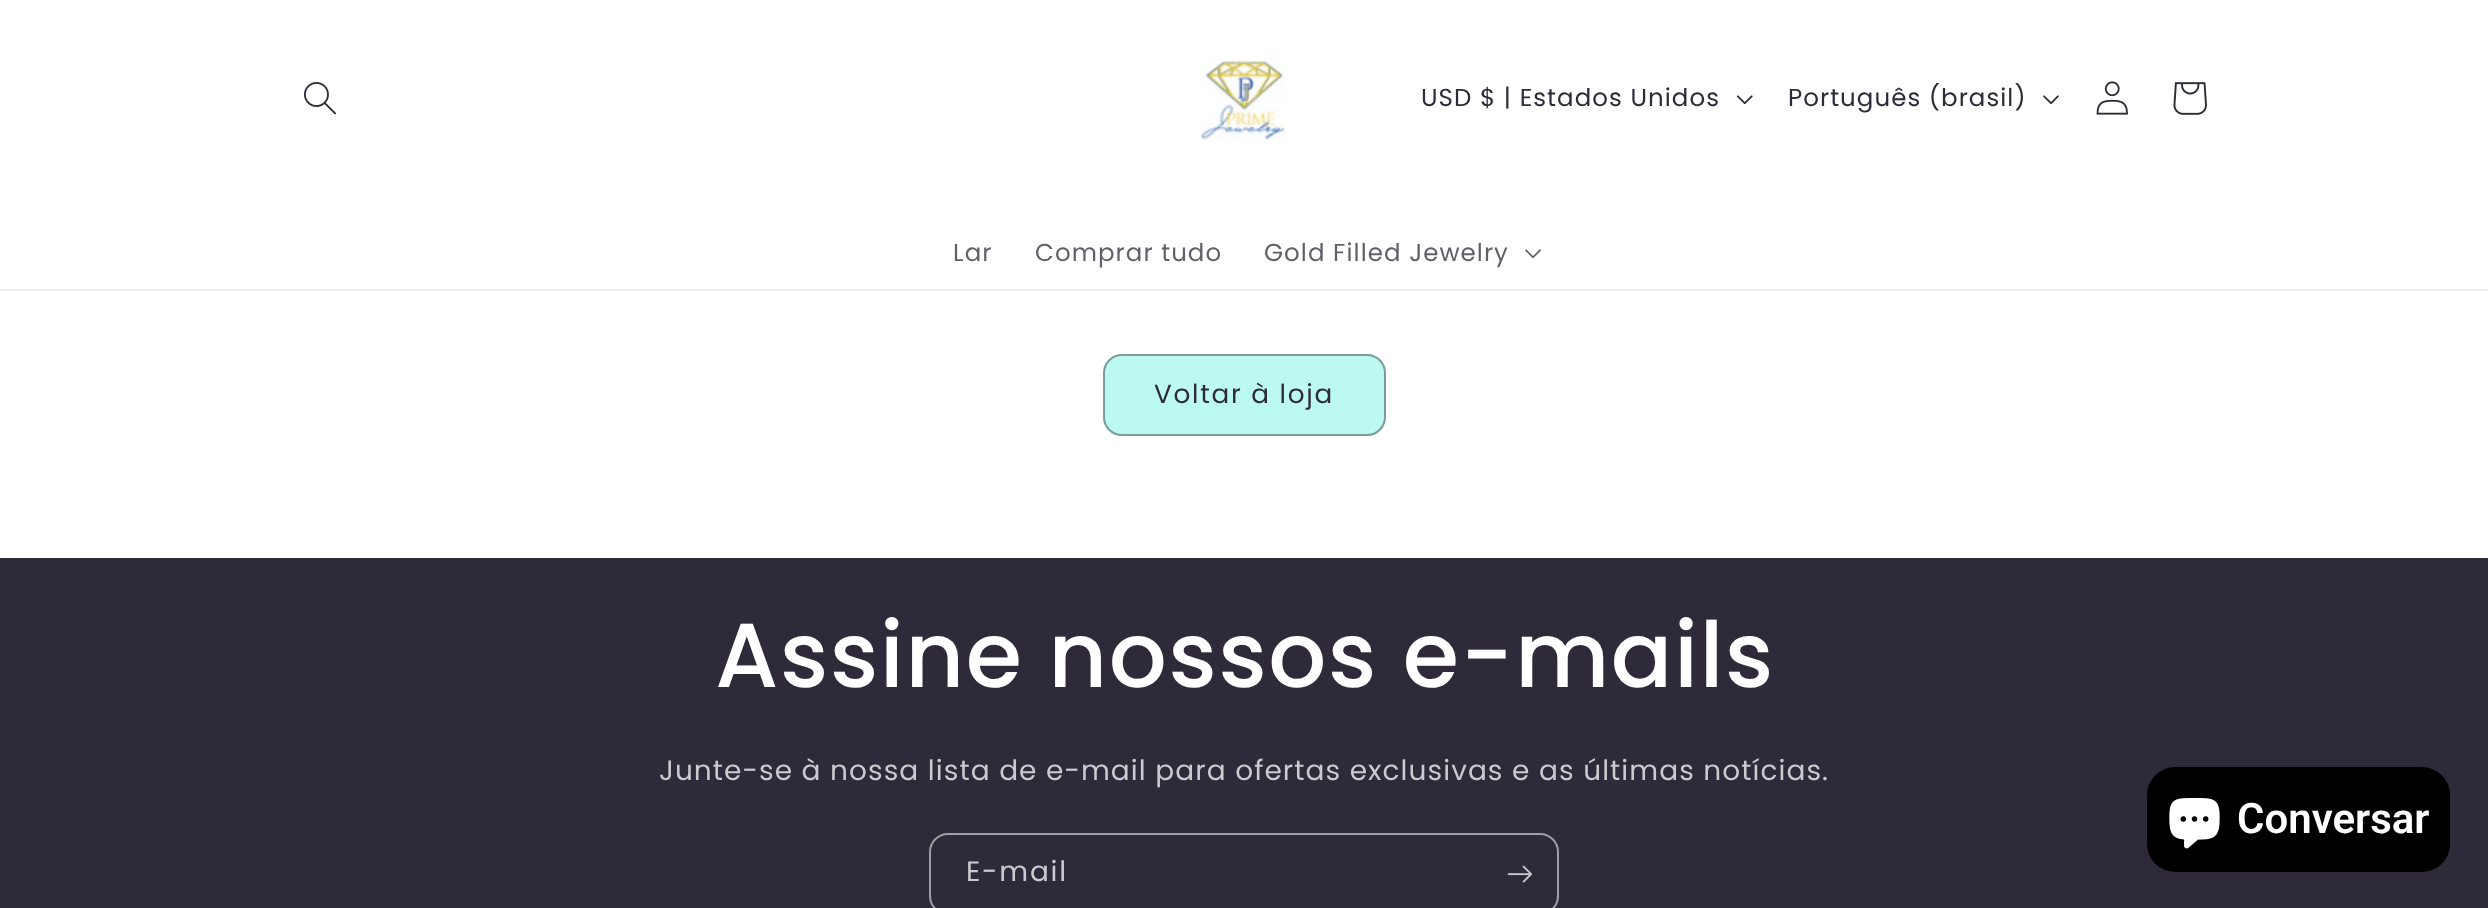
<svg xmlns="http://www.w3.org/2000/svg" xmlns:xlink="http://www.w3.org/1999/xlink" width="2488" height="908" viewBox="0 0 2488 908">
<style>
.cls-1{font:24.5px Poppins;letter-spacing:1.05px;fill:#2e2a39}
.cls-2{font:24.5px Poppins;letter-spacing:1.05px;fill:#625f6b}
.cls-3{font:26.25px Poppins;letter-spacing:1.75px;fill:#2e2a39}
.cls-4{font:500 91px Poppins;letter-spacing:1.4px;fill:#ffffff}
.cls-5{font:28px Poppins;letter-spacing:1.05px;fill:#cbcace}
.cls-6{font:28px Poppins;letter-spacing:1.75px;fill:#cbcace}
.cls-7{font:600 42px Roboto;fill:#ffffff}
</style>
<rect width="100%" height="100%" fill="#ffffff"/>
<rect fill="#eeeeef" x="0" y="289" width="2488" height="2"/>
<image xlink:href="image0.png" x="304" y="82" width="32" height="33"/>
<image xlink:href="image1.png" x="1200" y="55" width="86" height="86"/>
<image xlink:href="image2.png" x="1736" y="95" width="17" height="10"/>
<image xlink:href="image3.png" x="2043" y="95" width="16" height="9"/>
<image xlink:href="image4.png" x="2096" y="81" width="32" height="34"/>
<image xlink:href="image5.png" x="2173" y="82" width="34" height="33"/>
<image xlink:href="image6.png" x="1525" y="249" width="16" height="9"/>
<rect fill="#bcf9f0" x="1103" y="354" width="283" height="82" rx="19"/>
<rect fill="none" stroke="#bcf9f0" stroke-width="2" x="1104" y="355" width="281" height="80" rx="18"/>
<rect fill="none" stroke="#2e2a39" stroke-opacity="0.45" stroke-width="2" x="1104" y="355" width="281" height="80" rx="18"/>
<rect fill="#2e2a39" x="0" y="558" width="2488" height="350"/>
<rect fill="none" stroke="#a19fa6" stroke-width="2" x="930" y="834" width="628" height="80" rx="18"/>
<image xlink:href="image7.png" x="1507" y="865" width="25" height="18"/>
<rect fill="#000000" x="2147" y="767" width="303" height="105" rx="28"/>
<image xlink:href="image8.png" x="2169" y="798" width="51" height="51"/>
<text class="cls-1" x="1421" y="106">USD $ | Estados Unidos</text>
<text class="cls-1" x="1788" y="106">Português (brasil)</text>
<text class="cls-2" x="953" y="261">Lar</text>
<text class="cls-2" x="1035" y="261">Comprar tudo</text>
<text class="cls-2" x="1264" y="261">Gold Filled Jewelry</text>
<text class="cls-3" x="1154" y="403">Voltar à loja</text>
<text class="cls-4" x="715" y="687">Assine nossos e-mails</text>
<text class="cls-5" x="659" y="780">Junte-se à nossa lista de e-mail para ofertas exclusivas e as últimas notícias.</text>
<text class="cls-6" x="966" y="881">E-mail</text>
<text class="cls-7" x="2237" y="833">Conversar</text>
</svg>
